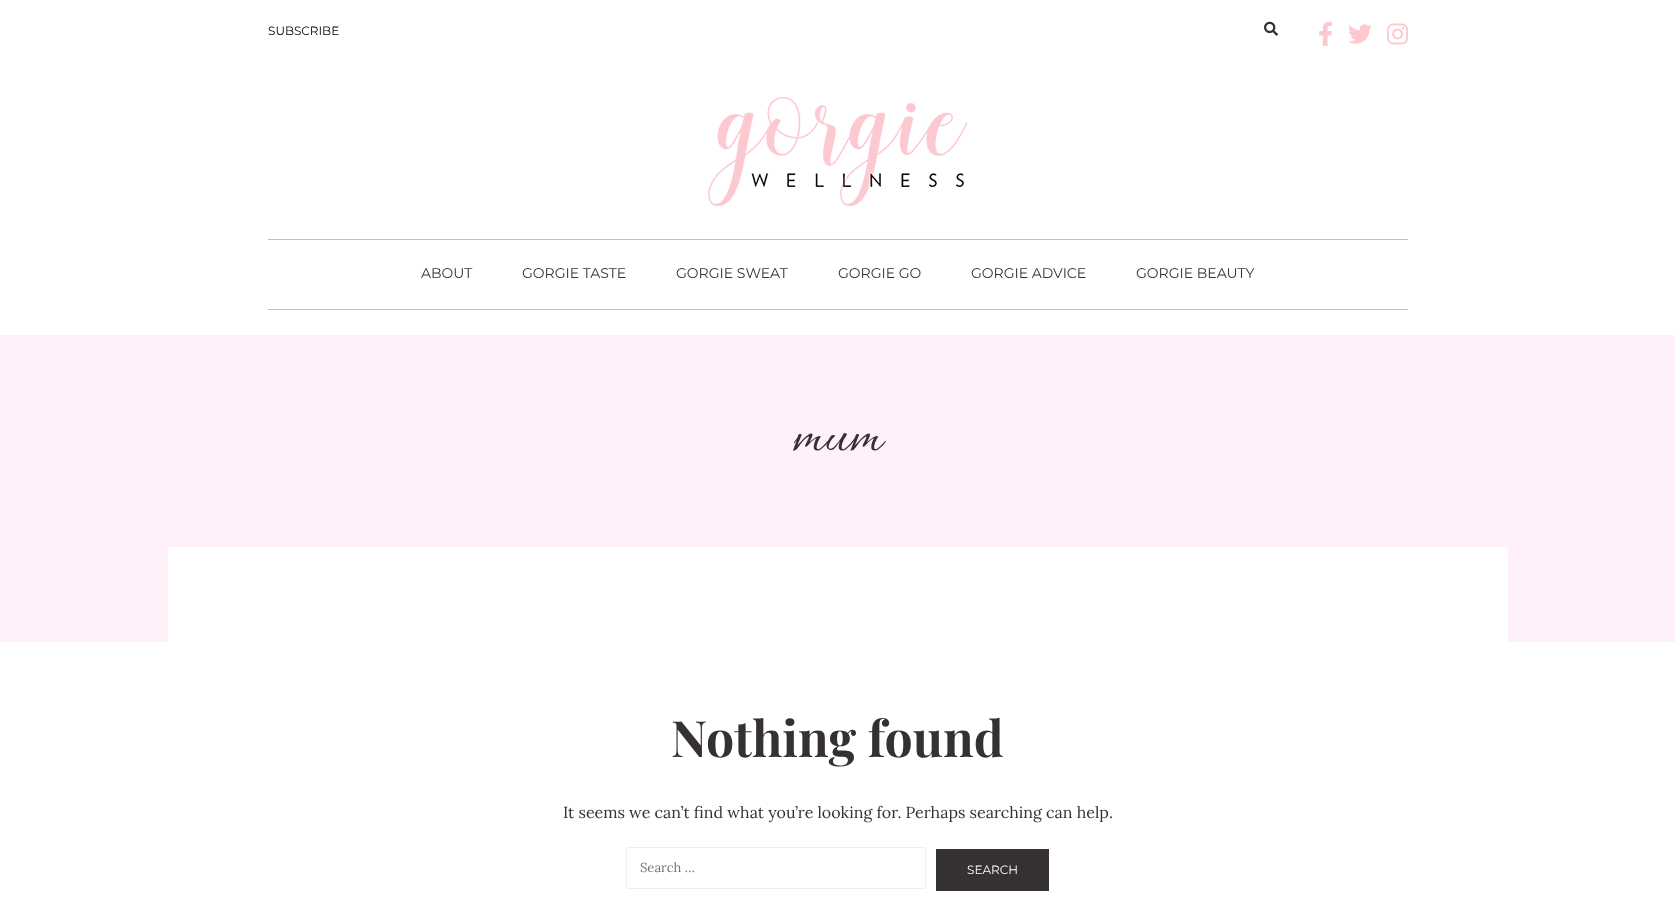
<svg xmlns="http://www.w3.org/2000/svg" xmlns:xlink="http://www.w3.org/1999/xlink" width="1675" height="921" viewBox="0 0 1675 921">
<style>
.cls-1{font:100 12px Montserrat;fill:#000000}
.cls-2{font:100 14px Montserrat;fill:#353034}
.cls-3{font:56px Allura;fill:#353034}
.cls-4{font:bold 50px Playfair Display;fill:#353034}
.cls-5{font:16px Lora;fill:#353034}
.cls-6{font:13px Lora;fill:#757575}
.cls-7{font:100 12px Montserrat;fill:#ffffff}
</style>
<rect width="100%" height="100%" fill="#ffffff"/>
<image xlink:href="image0.png" x="1264" y="21" width="14" height="15"/>
<image xlink:href="image1.png" x="1319" y="22" width="13" height="24"/>
<image xlink:href="image2.png" x="1348" y="24" width="24" height="20"/>
<image xlink:href="image3.png" x="1387" y="23" width="21" height="22"/>
<image xlink:href="image4.png" x="708" y="97" width="260" height="109"/>
<rect fill="#bfbfbf" x="268" y="239" width="1140" height="1"/>
<rect fill="#bfbfbf" x="268" y="309" width="1140" height="1"/>
<rect fill="#fff0fa" x="0" y="335" width="1675" height="307"/>
<rect fill="#ffffff" x="168" y="547" width="1340" height="95"/>
<rect fill="none" stroke="#eeeeee" x="626.5" y="847.5" width="299" height="41"/>
<rect fill="#353034" x="936" y="849" width="113" height="42"/>
<text class="cls-1" x="268" y="35">SUBSCRIBE</text>
<text class="cls-2" x="421" y="278">ABOUT</text>
<text class="cls-2" x="522" y="278">GORGIE TASTE</text>
<text class="cls-2" x="676" y="278">GORGIE SWEAT</text>
<text class="cls-2" x="838" y="278">GORGIE GO</text>
<text class="cls-2" x="971" y="278">GORGIE ADVICE</text>
<text class="cls-2" x="1136" y="278">GORGIE BEAUTY</text>
<text class="cls-3" x="792" y="450">mum</text>
<text class="cls-4" x="671" y="757">Nothing found</text>
<text class="cls-5" x="563" y="818">It seems we can’t find what you’re looking for. Perhaps searching can help.</text>
<text class="cls-6" x="640" y="872">Search …</text>
<text class="cls-7" x="967" y="874">SEARCH</text>
</svg>
